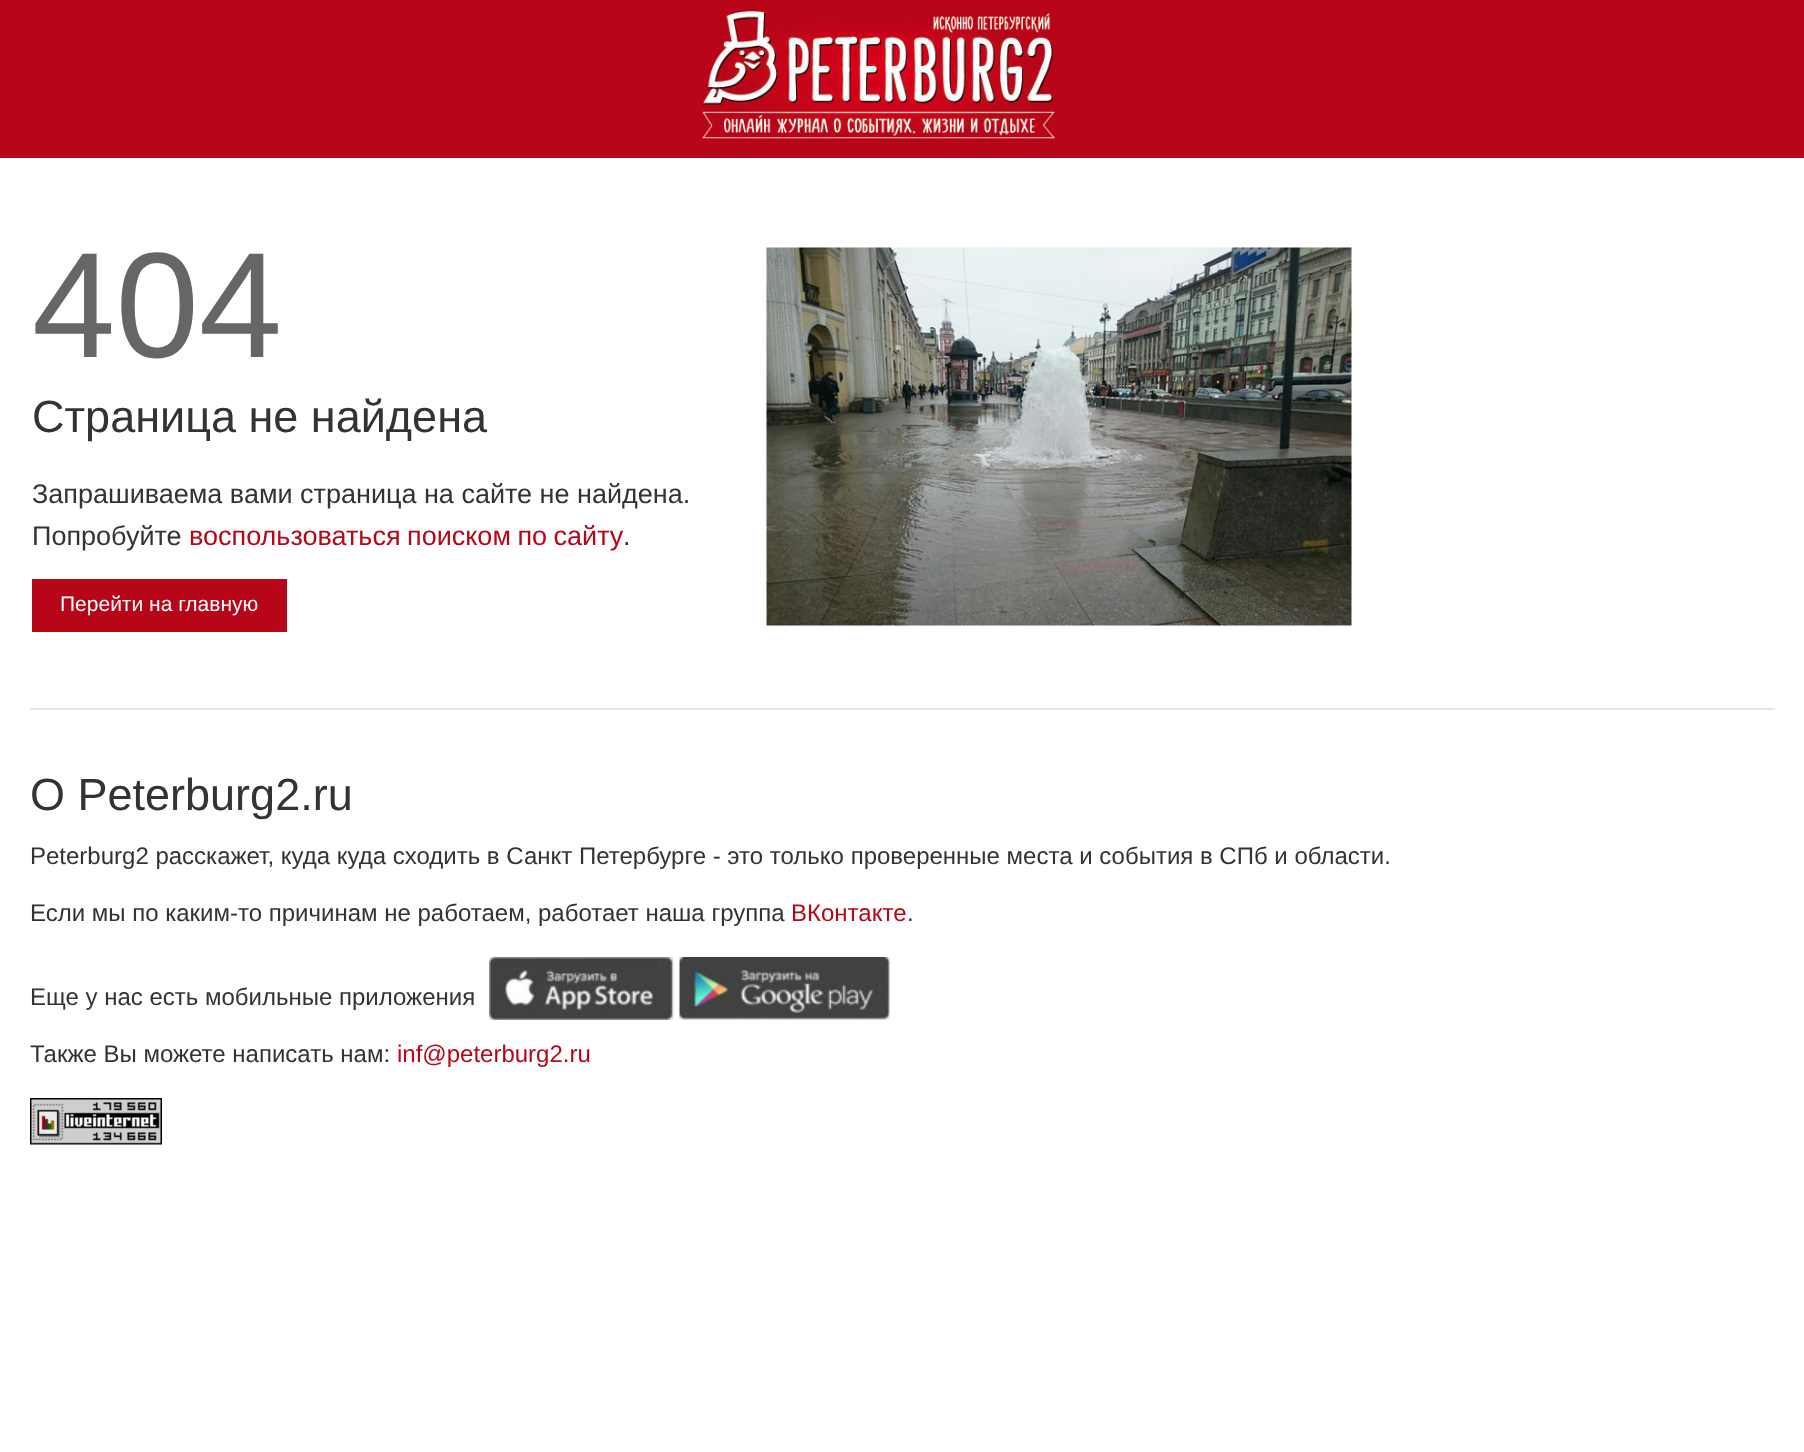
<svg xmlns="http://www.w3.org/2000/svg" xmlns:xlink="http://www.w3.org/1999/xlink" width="1804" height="1452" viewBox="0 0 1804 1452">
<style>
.cls-1{font:150px Liberation Sans;fill:#666666}
.cls-2{font:45px Liberation Sans;fill:#333333}
.cls-3{font:27px Liberation Sans;fill:#333333}
.cls-4{font:27px Liberation Sans;fill:#b70618}
.cls-5{font:21px Liberation Sans;fill:#ffffff}
.cls-6{font:24px Liberation Sans;fill:#333333}
.cls-7{font:24px Liberation Sans;fill:#b70618}
</style>
<rect width="100%" height="100%" fill="#ffffff"/>
<rect fill="#b80518" x="0" y="0" width="1804" height="158"/>
<image xlink:href="image0.png" x="702" y="11" width="353" height="128"/>
<rect fill="#b70618" x="32" y="579" width="255" height="53"/>
<image xlink:href="image1.png" x="766" y="247" width="586" height="379"/>
<rect fill="#e4e4e4" x="30" y="708" width="1745" height="2"/>
<image xlink:href="image2.png" x="489" y="957" width="185" height="63"/>
<image xlink:href="image3.png" x="679" y="957" width="211" height="63"/>
<image xlink:href="image4.png" x="30" y="1098" width="132" height="47"/>
<text class="cls-1" x="32" y="357">404</text>
<text class="cls-2" x="32" y="432">Страница не найдена</text>
<text class="cls-3"><tspan x="32" y="503">Запрашиваема вами страница на сайте не найдена.</tspan><tspan x="32" y="545">Попробуйте</tspan></text>
<text class="cls-4" x="189" y="545" word-spacing="-1">воспользоваться поиском по сайту</text>
<text class="cls-3" x="623" y="545">.</text>
<text class="cls-5" x="60" y="611">Перейти на главную</text>
<text class="cls-2" x="30" y="810">О Peterburg2.ru</text>
<text class="cls-6" x="30" y="864">Peterburg2 расскажет, куда куда сходить в Санкт Петербурге - это только проверенные места и события в СПб и области.</text>
<text class="cls-6" x="30" y="921">Если мы по каким-то причинам не работаем, работает наша группа</text>
<text class="cls-7" x="791" y="921">ВКонтакте</text>
<text class="cls-6" x="907" y="921">.</text>
<text class="cls-6" x="30" y="1005">Еще у нас есть мобильные приложения</text>
<text class="cls-6" x="30" y="1062">Также Вы можете написать нам:</text>
<text class="cls-7" x="397" y="1062">inf@peterburg2.ru</text>
</svg>
